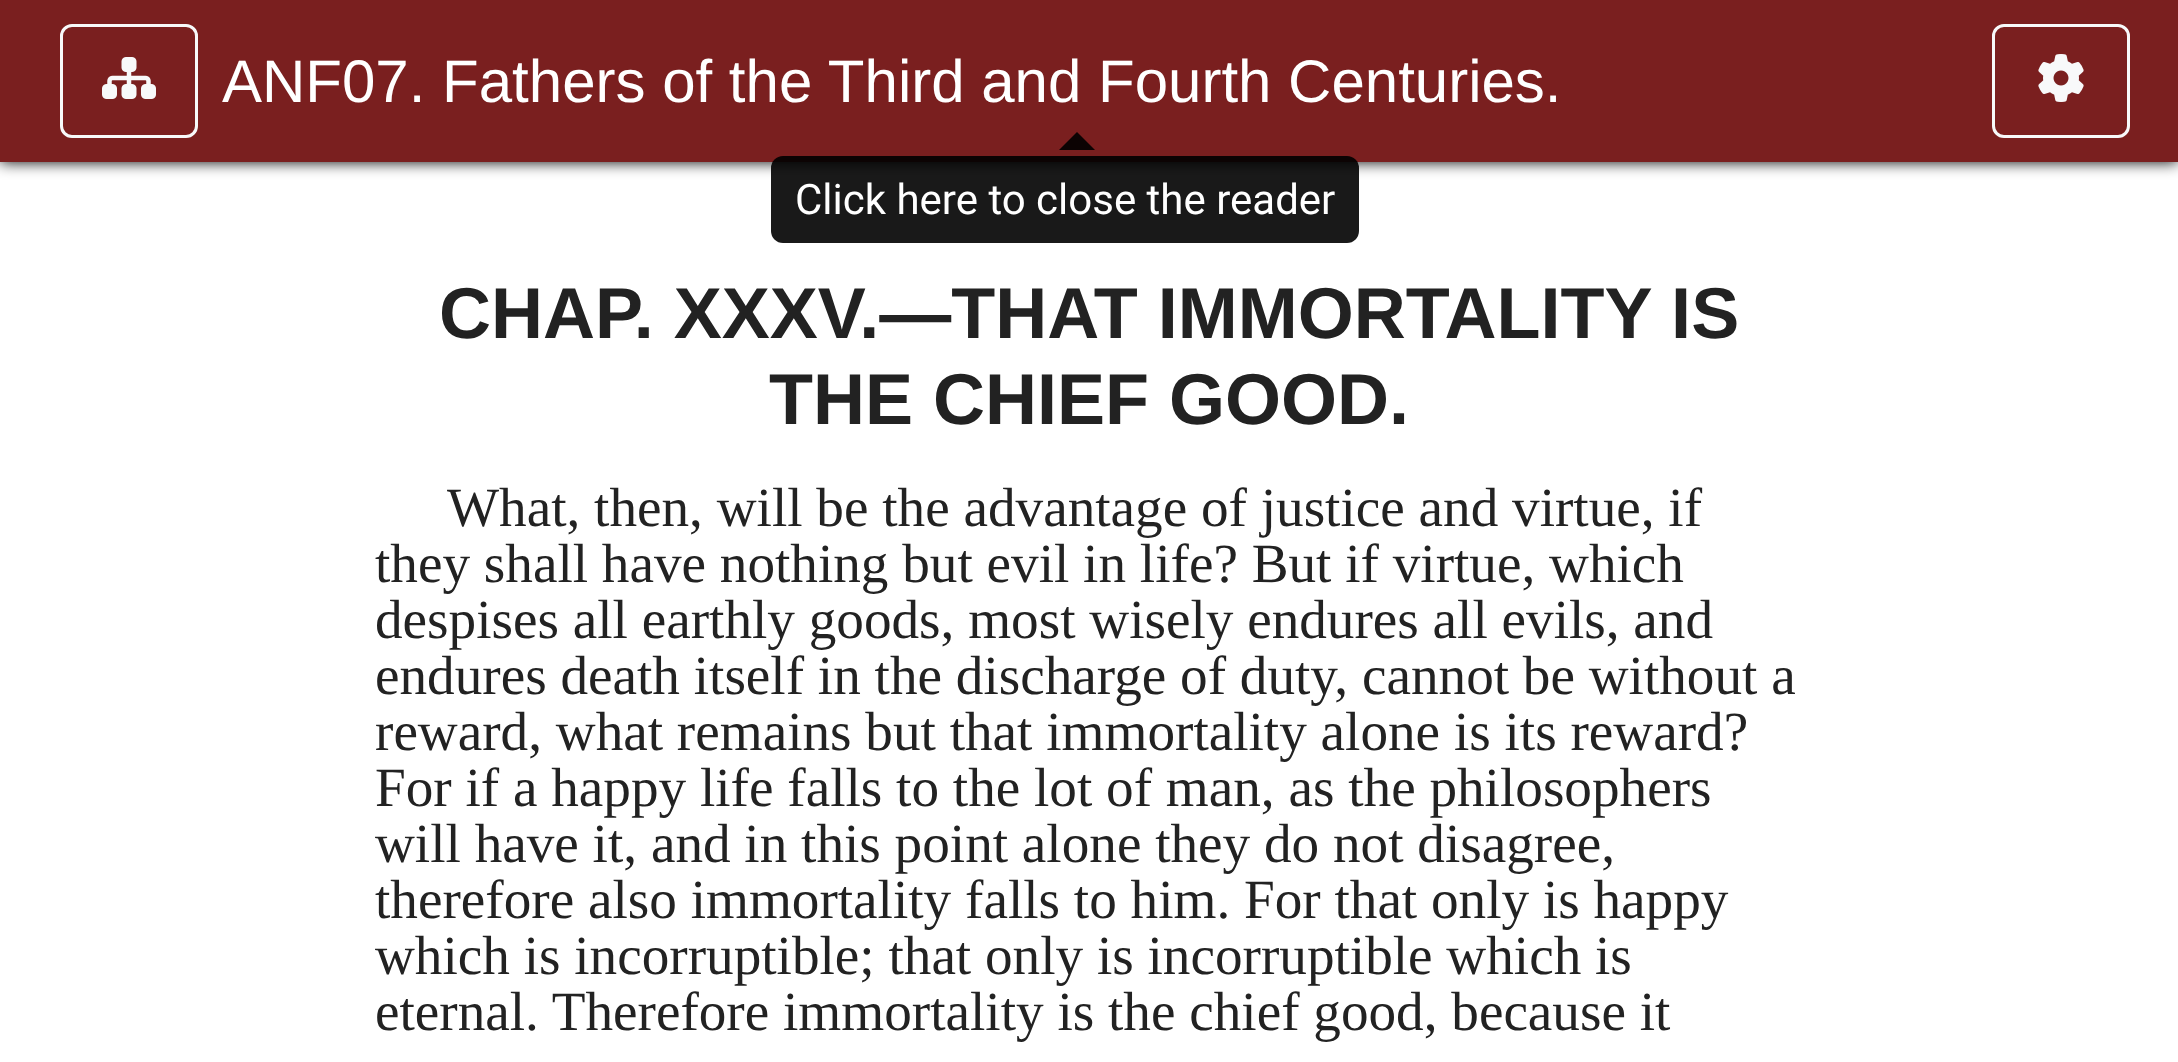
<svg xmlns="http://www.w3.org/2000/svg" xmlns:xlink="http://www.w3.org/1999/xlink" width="2178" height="1062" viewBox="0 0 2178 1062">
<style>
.cls-1{font:60px Liberation Sans;fill:#ffffff}
.cls-2{font:bold 72px Liberation Sans;fill:#222222}
.cls-3{font:55.2px Liberation Serif;fill:#222222}
.cls-4{font:42px Roboto;fill:#ffffff}
</style>
<rect width="100%" height="100%" fill="#ffffff"/>
<rect fill="#000000" filter="blur(7.5px)" x="0" y="0" width="2178" height="162"/>
<rect fill="#7a1f1f" x="0" y="0" width="2178" height="162"/>
<rect fill="none" stroke="#f8f9fa" stroke-width="3" x="61.5" y="25.5" width="135" height="111" rx="10.5"/>
<image xlink:href="image0.png" x="102" y="57" width="54" height="42"/>
<rect fill="none" stroke="#f8f9fa" stroke-width="3" x="1993.5" y="25.5" width="135" height="111" rx="10.5"/>
<image xlink:href="image1.png" x="2038" y="54" width="46" height="48"/>
<path fill="#0c0303" d="M1095 150H1059L1077 132Z"/>
<rect fill="#000000" fill-opacity="0.9" x="771" y="156" width="588" height="87" rx="12"/>
<text class="cls-1" x="222" y="102">ANF07. Fathers of the Third and Fourth Centuries.</text>
<text class="cls-2" x="439" y="338">CHAP. XXXV.—THAT IMMORTALITY IS</text>
<text class="cls-2" x="769" y="424">THE CHIEF GOOD.</text>
<text class="cls-3" x="447" y="526">What, then, will be the advantage of justice and virtue, if</text>
<text class="cls-3"><tspan x="375" y="582">they shall have nothing but evil in life? But if virtue, which</tspan><tspan x="375" y="638">despises all earthly goods, most wisely endures all evils, and</tspan><tspan x="375" y="694">endures death itself in the discharge of duty, cannot be without a</tspan><tspan x="375" y="750">reward, what remains but that immortality alone is its reward?</tspan><tspan x="375" y="806">For if a happy life falls to the lot of man, as the philosophers</tspan><tspan x="375" y="862">will have it, and in this point alone they do not disagree,</tspan><tspan x="375" y="918">therefore also immortality falls to him. For that only is happy</tspan><tspan x="375" y="974">which is incorruptible; that only is incorruptible which is</tspan><tspan x="375" y="1030">eternal. Therefore immortality is the chief good, because it</tspan></text>
<text class="cls-4" x="795" y="214">Click here to close the reader</text>
</svg>
